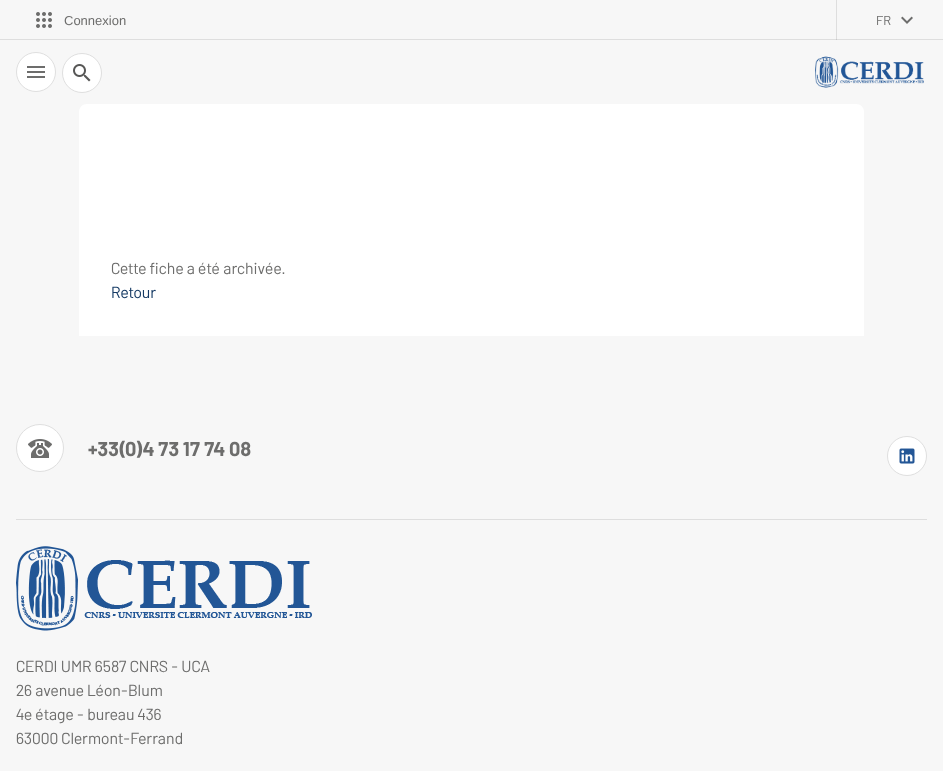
<svg xmlns="http://www.w3.org/2000/svg" xmlns:xlink="http://www.w3.org/1999/xlink" width="943" height="771" viewBox="0 0 943 771">
<style>
.cls-1{font:13px Liberation Sans;fill:#6d6d6c}
.cls-2{font:13px Barlow;fill:#6d6d6c}
.cls-3{font:16px Barlow;fill:#6d6d6c}
.cls-4{font:16px Barlow;fill:#153a64}
.cls-5{font:bold 20px Barlow;fill:#6d6d6c}
</style>
<rect width="100%" height="100%" fill="#f7f7f7"/>
<rect fill="#dedede" x="836" y="0" width="1" height="40"/>
<rect fill="#dedede" x="0" y="39" width="943" height="1"/>
<rect fill="#c8c8c8" x="836" y="39" width="1" height="1"/>
<image xlink:href="image0.png" x="36" y="12" width="16" height="16"/>
<image xlink:href="image1.png" x="901" y="16" width="12" height="8"/>
<circle fill="#ffffff" stroke="#dfdfdf" cx="36" cy="72" r="19.5"/>
<image xlink:href="image2.png" x="27" y="66" width="18" height="12"/>
<circle fill="#ffffff" stroke="#dfdfdf" cx="82" cy="73" r="19.5"/>
<image xlink:href="image3.png" x="73" y="64" width="18" height="18"/>
<image xlink:href="image4.png" x="815" y="56" width="109" height="32"/>
<path fill="#ffffff" d="M87 104H856C860.5 104 864 107.5 864 112V336H79V112C79 107.5 82.5 104 87 104Z"/>
<rect fill="#dedede" x="16" y="519" width="911" height="1"/>
<circle fill="#ffffff" stroke="#dfdfdf" cx="40" cy="448" r="23.5"/>
<image xlink:href="image5.png" x="28" y="439" width="24" height="19"/>
<circle fill="#ffffff" stroke="#dfdfdf" cx="907" cy="456" r="19.5"/>
<image xlink:href="image6.png" x="899" y="448" width="16" height="16"/>
<image xlink:href="image7.png" x="16" y="546" width="296" height="85"/>
<text class="cls-1" x="64" y="25">Connexion</text>
<text class="cls-2" x="876" y="25">FR</text>
<text class="cls-3" x="111" y="274">Cette fiche a été archivée.</text>
<text class="cls-4" x="111" y="298">Retour</text>
<text class="cls-5" x="88" y="456">+33(0)4 73 17 74 08</text>
<text class="cls-3"><tspan x="16" y="672">CERDI UMR 6587 CNRS - UCA</tspan><tspan x="16" y="696">26 avenue Léon-Blum</tspan><tspan x="16" y="720">4e étage - bureau 436</tspan><tspan x="16" y="744">63000 Clermont-Ferrand</tspan></text>
</svg>
